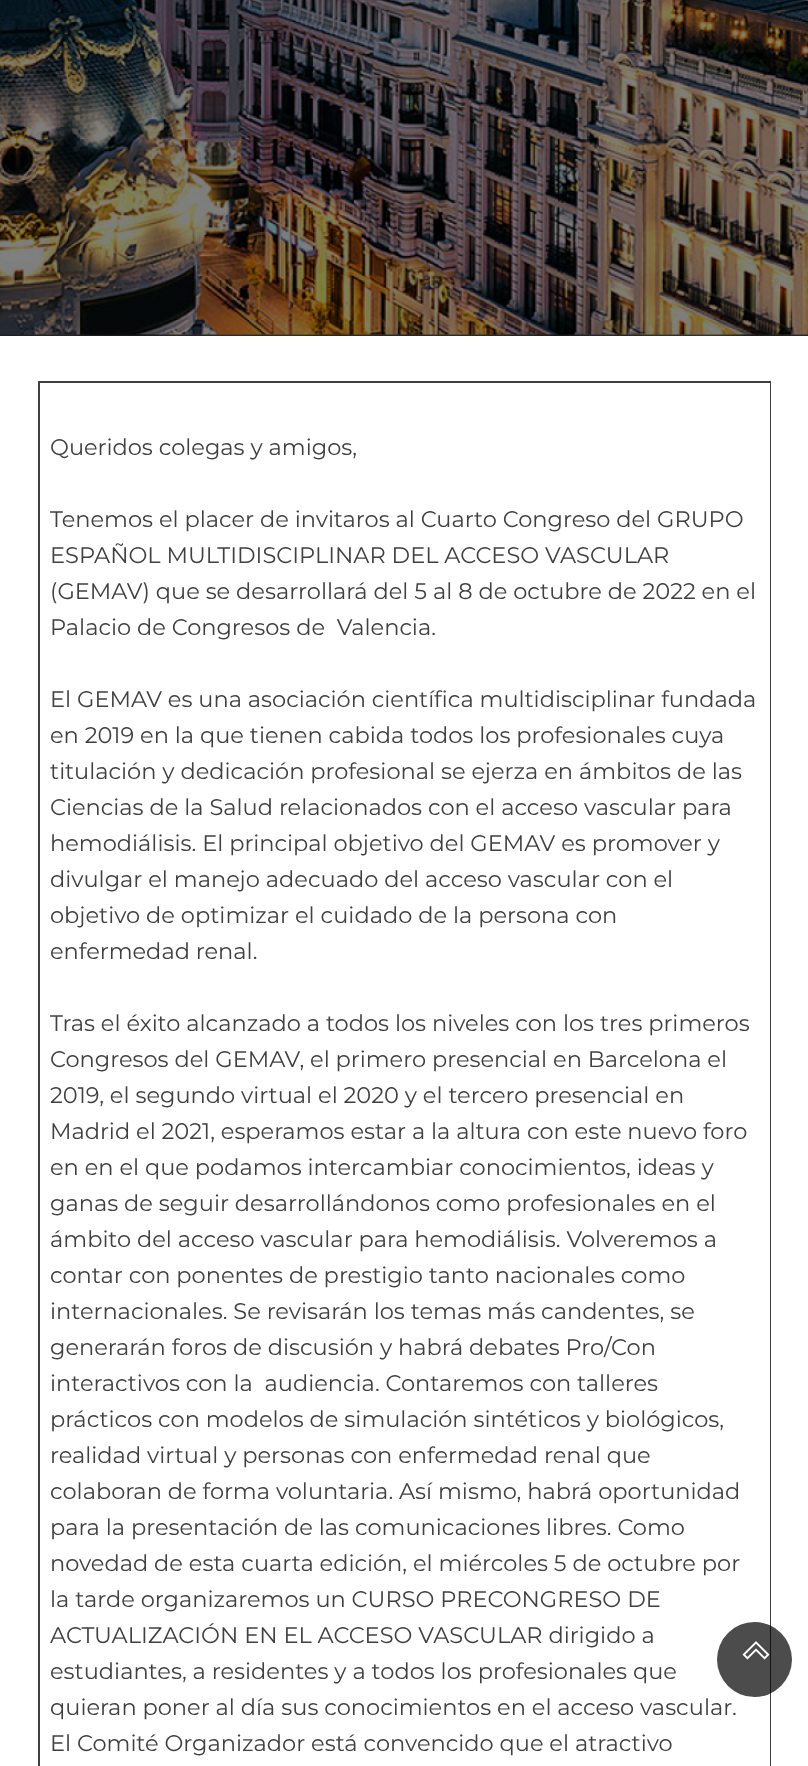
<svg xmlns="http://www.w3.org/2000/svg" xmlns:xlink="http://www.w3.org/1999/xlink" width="808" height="1766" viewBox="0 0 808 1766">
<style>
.cls-1{font:22.5px Montserrat;fill:#404040}
</style>
<rect width="100%" height="100%" fill="#ffffff"/>
<rect fill="#1e1e1e" x="0" y="334" width="808" height="2"/>
<image xlink:href="image1.png" x="0" y="334" width="808" height="2"/>
<image xlink:href="image0.png" x="0" y="0" width="808" height="335"/>
<rect fill="#404040" x="38" y="381" width="733" height="2"/>
<rect fill="#404040" x="770" y="381" width="1" height="1385"/>
<rect fill="#404040" x="38" y="381" width="2" height="1385"/>
<circle fill="#000000" fill-opacity="0.7" cx="754.5" cy="1659.5" r="37.5"/>
<image xlink:href="image2.png" x="742" y="1641" width="28" height="19"/>
<text class="cls-1" x="50" y="455">Queridos colegas y amigos,</text>
<text class="cls-1" xml:space="preserve"><tspan x="50" y="527">Tenemos el placer de invitaros al Cuarto Congreso del GRUPO</tspan><tspan x="50" y="563">ESPAÑOL MULTIDISCIPLINAR DEL ACCESO VASCULAR</tspan><tspan x="50" y="599">(GEMAV) que se desarrollará del 5 al 8 de octubre de 2022 en el</tspan><tspan x="50" y="635">Palacio de Congresos de  Valencia.</tspan></text>
<text class="cls-1"><tspan x="50" y="707">El GEMAV es una asociación científica multidisciplinar fundada</tspan><tspan x="50" y="743">en 2019 en la que tienen cabida todos los profesionales cuya</tspan><tspan x="50" y="779">titulación y dedicación profesional se ejerza en ámbitos de las</tspan><tspan x="50" y="815">Ciencias de la Salud relacionados con el acceso vascular para</tspan><tspan x="50" y="851">hemodiálisis. El principal objetivo del GEMAV es promover y</tspan><tspan x="50" y="887">divulgar el manejo adecuado del acceso vascular con el</tspan><tspan x="50" y="923">objetivo de optimizar el cuidado de la persona con</tspan><tspan x="50" y="959">enfermedad renal.</tspan></text>
<text class="cls-1" xml:space="preserve"><tspan x="50" y="1031">Tras el éxito alcanzado a todos los niveles con los tres primeros</tspan><tspan x="50" y="1067">Congresos del GEMAV, el primero presencial en Barcelona el</tspan><tspan x="50" y="1103">2019, el segundo virtual el 2020 y el tercero presencial en</tspan><tspan x="50" y="1139">Madrid el 2021, esperamos estar a la altura con este nuevo foro</tspan><tspan x="50" y="1175">en en el que podamos intercambiar conocimientos, ideas y</tspan><tspan x="50" y="1211">ganas de seguir desarrollándonos como profesionales en el</tspan><tspan x="50" y="1247">ámbito del acceso vascular para hemodiálisis. Volveremos a</tspan><tspan x="50" y="1283">contar con ponentes de prestigio tanto nacionales como</tspan><tspan x="50" y="1319">internacionales. Se revisarán los temas más candentes, se</tspan><tspan x="50" y="1355">generarán foros de discusión y habrá debates Pro/Con</tspan><tspan x="50" y="1391">interactivos con la  audiencia. Contaremos con talleres</tspan><tspan x="50" y="1427">prácticos con modelos de simulación sintéticos y biológicos,</tspan><tspan x="50" y="1463">realidad virtual y personas con enfermedad renal que</tspan><tspan x="50" y="1499">colaboran de forma voluntaria. Así mismo, habrá oportunidad</tspan><tspan x="50" y="1535">para la presentación de las comunicaciones libres. Como</tspan><tspan x="50" y="1571">novedad de esta cuarta edición, el miércoles 5 de octubre por</tspan><tspan x="50" y="1607">la tarde organizaremos un CURSO PRECONGRESO DE</tspan><tspan x="50" y="1643">ACTUALIZACIÓN EN EL ACCESO VASCULAR dirigido a</tspan><tspan x="50" y="1679">estudiantes, a residentes y a todos los profesionales que</tspan><tspan x="50" y="1715">quieran poner al día sus conocimientos en el acceso vascular.</tspan><tspan x="50" y="1751">El Comité Organizador está convencido que el atractivo</tspan></text>
</svg>
